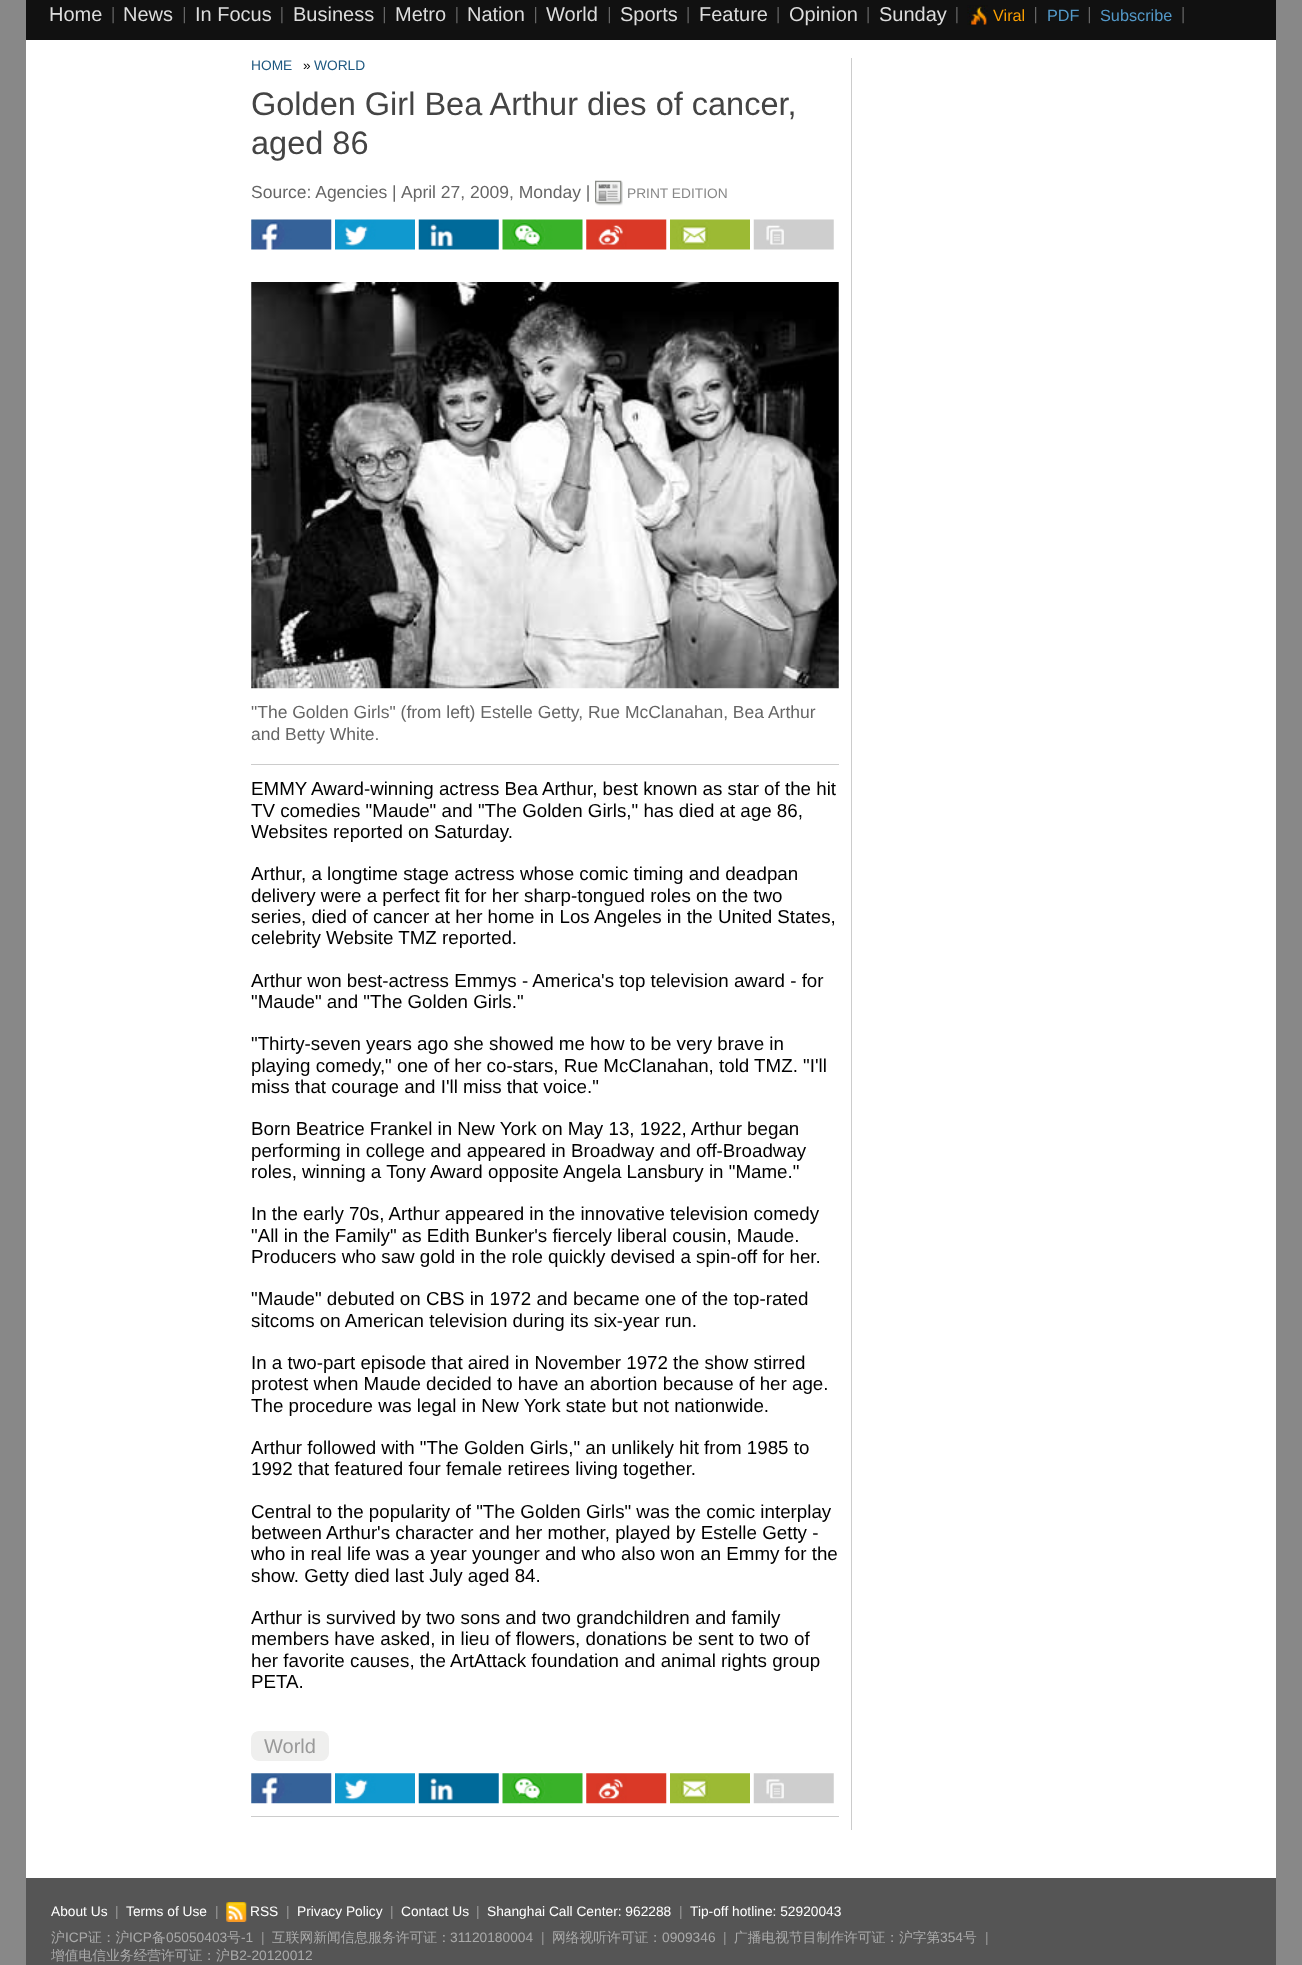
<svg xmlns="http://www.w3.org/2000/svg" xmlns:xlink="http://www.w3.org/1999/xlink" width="1302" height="1965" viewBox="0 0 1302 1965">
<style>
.cls-1{font:20px Liberation Sans;fill:#dddddd}
.cls-2{font:16.25px Liberation Sans;fill:#fa9e00}
.cls-3{font:16.25px Liberation Sans;fill:#5398c7}
.cls-4{font:13.75px Liberation Sans;fill:#1e5880}
.cls-5{font:13.75px Liberation Sans;fill:#000000}
.cls-6{font:32.5px Liberation Sans;fill:#444444}
.cls-7{font:17.5px Liberation Sans;fill:#666666}
.cls-8{font:13.75px Liberation Sans;fill:#888888}
.cls-9{font:18.75px Liberation Sans;fill:#000000}
.cls-10{font:20px Liberation Sans;fill:#999999}
.cls-11{font:13.75px Liberation Sans;fill:#ffffff}
.cls-12{font:13.75px Liberation Sans;fill:#999999}
.cls-13{font:500 13.75px WenQuanYi Zen Hei;fill:#aaaaaa}
.cls-14{font:13.75px Liberation Sans;fill:#aaaaaa}
</style>
<rect width="100%" height="100%" fill="#888888"/>
<rect fill="#ffffff" x="26" y="40" width="1250" height="1838"/>
<rect fill="#111111" x="26" y="0" width="1250" height="40"/>
<image xlink:href="image0.png" x="112" y="7" width="2" height="17"/>
<image xlink:href="image1.png" x="183" y="7" width="2" height="17"/>
<image xlink:href="image2.png" x="281" y="7" width="2" height="17"/>
<image xlink:href="image1.png" x="383" y="7" width="2" height="17"/>
<image xlink:href="image2.png" x="456" y="7" width="2" height="17"/>
<image xlink:href="image3.png" x="535" y="7" width="2" height="17"/>
<image xlink:href="image1.png" x="608" y="7" width="2" height="17"/>
<image xlink:href="image0.png" x="687" y="7" width="2" height="17"/>
<image xlink:href="image0.png" x="777" y="7" width="2" height="17"/>
<image xlink:href="image0.png" x="867" y="7" width="2" height="17"/>
<image xlink:href="image2.png" x="956" y="7" width="2" height="17"/>
<image xlink:href="image3.png" x="1035" y="7" width="2" height="17"/>
<image xlink:href="image4.png" x="967" y="5" width="21" height="20"/>
<image xlink:href="image1.png" x="1088" y="7" width="2" height="17"/>
<image xlink:href="image0.png" x="1182" y="7" width="2" height="17"/>
<rect fill="#cccccc" x="851" y="58" width="1" height="1772"/>
<image xlink:href="image5.png" x="595" y="180" width="28" height="26"/>
<image xlink:href="image6.png" x="251" y="219" width="81" height="31"/>
<image xlink:href="image7.png" x="335" y="219" width="80" height="31"/>
<image xlink:href="image8.png" x="418" y="219" width="81" height="31"/>
<image xlink:href="image9.png" x="502" y="219" width="81" height="31"/>
<image xlink:href="image10.png" x="586" y="219" width="81" height="31"/>
<image xlink:href="image11.png" x="670" y="219" width="80" height="31"/>
<image xlink:href="image12.png" x="753" y="219" width="81" height="31"/>
<rect fill="#cccccc" x="251" y="764" width="588" height="1"/>
<image xlink:href="image13.png" x="251" y="282" width="588" height="407"/>
<rect fill="#efefee" x="251" y="1731" width="78" height="30" rx="8"/>
<rect fill="#cccccc" x="251" y="1816" width="588" height="1"/>
<image xlink:href="image14.png" x="251" y="1773" width="81" height="31"/>
<image xlink:href="image15.png" x="335" y="1773" width="80" height="31"/>
<image xlink:href="image16.png" x="418" y="1773" width="81" height="31"/>
<image xlink:href="image17.png" x="502" y="1773" width="81" height="31"/>
<image xlink:href="image18.png" x="586" y="1773" width="81" height="31"/>
<image xlink:href="image19.png" x="670" y="1773" width="80" height="31"/>
<image xlink:href="image20.png" x="753" y="1773" width="81" height="31"/>
<rect fill="#555555" x="26" y="1878" width="1250" height="87"/>
<image xlink:href="image21.png" x="226" y="1902" width="21" height="20"/>
<text class="cls-1" x="49" y="21">Home</text>
<text class="cls-1" x="123" y="21">News</text>
<text class="cls-1" x="195" y="21">In Focus</text>
<text class="cls-1" x="293" y="21">Business</text>
<text class="cls-1" x="395" y="21">Metro</text>
<text class="cls-1" x="467" y="21">Nation</text>
<text class="cls-1" x="546" y="21">World</text>
<text class="cls-1" x="620" y="21">Sports</text>
<text class="cls-1" x="699" y="21">Feature</text>
<text class="cls-1" x="789" y="21">Opinion</text>
<text class="cls-1" x="879" y="21">Sunday</text>
<text class="cls-2" x="993" y="21">Viral</text>
<text class="cls-3" x="1047" y="21">PDF</text>
<text class="cls-3" x="1100" y="21">Subscribe</text>
<text class="cls-4" x="251" y="70">HOME</text>
<text class="cls-5" x="303" y="70">»</text>
<text class="cls-4" x="314" y="70">WORLD</text>
<text class="cls-6"><tspan x="251" y="115">Golden Girl Bea Arthur dies of cancer,</tspan><tspan x="251" y="154">aged 86</tspan></text>
<text class="cls-7" x="251" y="198">Source: Agencies |</text>
<text class="cls-7" x="401" y="198">April 27, 2009, Monday |</text>
<text class="cls-8" x="627" y="198">PRINT EDITION</text>
<text class="cls-7"><tspan x="251" y="718">"The Golden Girls" (from left) Estelle Getty, Rue McClanahan, Bea Arthur</tspan><tspan x="251" y="740">and Betty White.</tspan></text>
<text class="cls-9"><tspan x="251" y="795">EMMY Award-winning actress Bea Arthur, best known as star of the hit</tspan><tspan x="251" y="817">TV comedies "Maude" and "The Golden Girls," has died at age 86,</tspan><tspan x="251" y="838">Websites reported on Saturday.</tspan></text>
<text class="cls-9"><tspan x="251" y="880">Arthur, a longtime stage actress whose comic timing and deadpan</tspan><tspan x="251" y="902">delivery were a perfect fit for her sharp-tongued roles on the two</tspan><tspan x="251" y="923">series, died of cancer at her home in Los Angeles in the United States,</tspan><tspan x="251" y="944">celebrity Website TMZ reported.</tspan></text>
<text class="cls-9"><tspan x="251" y="987">Arthur won best-actress Emmys - America's top television award - for</tspan><tspan x="251" y="1008">"Maude" and "The Golden Girls."</tspan></text>
<text class="cls-9"><tspan x="251" y="1050">"Thirty-seven years ago she showed me how to be very brave in</tspan><tspan x="251" y="1072">playing comedy," one of her co-stars, Rue McClanahan, told TMZ. "I'll</tspan><tspan x="251" y="1093">miss that courage and I'll miss that voice."</tspan></text>
<text class="cls-9"><tspan x="251" y="1135">Born Beatrice Frankel in New York on May 13, 1922, Arthur began</tspan><tspan x="251" y="1157">performing in college and appeared in Broadway and off-Broadway</tspan><tspan x="251" y="1178">roles, winning a Tony Award opposite Angela Lansbury in "Mame."</tspan></text>
<text class="cls-9"><tspan x="251" y="1220">In the early 70s, Arthur appeared in the innovative television comedy</tspan><tspan x="251" y="1242">"All in the Family" as Edith Bunker's fiercely liberal cousin, Maude.</tspan><tspan x="251" y="1263">Producers who saw gold in the role quickly devised a spin-off for her.</tspan></text>
<text class="cls-9"><tspan x="251" y="1305">"Maude" debuted on CBS in 1972 and became one of the top-rated</tspan><tspan x="251" y="1327">sitcoms on American television during its six-year run.</tspan></text>
<text class="cls-9"><tspan x="251" y="1369">In a two-part episode that aired in November 1972 the show stirred</tspan><tspan x="251" y="1390">protest when Maude decided to have an abortion because of her age.</tspan><tspan x="251" y="1412">The procedure was legal in New York state but not nationwide.</tspan></text>
<text class="cls-9"><tspan x="251" y="1454">Arthur followed with "The Golden Girls," an unlikely hit from 1985 to</tspan><tspan x="251" y="1475">1992 that featured four female retirees living together.</tspan></text>
<text class="cls-9"><tspan x="251" y="1518">Central to the popularity of "The Golden Girls" was the comic interplay</tspan><tspan x="251" y="1539">between Arthur's character and her mother, played by Estelle Getty -</tspan><tspan x="251" y="1560">who in real life was a year younger and who also won an Emmy for the</tspan><tspan x="251" y="1582">show. Getty died last July aged 84.</tspan></text>
<text class="cls-9"><tspan x="251" y="1624">Arthur is survived by two sons and two grandchildren and family</tspan><tspan x="251" y="1645">members have asked, in lieu of flowers, donations be sent to two of</tspan><tspan x="251" y="1667">her favorite causes, the ArtAttack foundation and animal rights group</tspan><tspan x="251" y="1688">PETA.</tspan></text>
<text class="cls-10" x="264" y="1753">World</text>
<text class="cls-11" x="51" y="1916">About Us</text>
<text class="cls-12" x="115" y="1916">|</text>
<text class="cls-11" x="126" y="1916">Terms of Use</text>
<text class="cls-12" x="215" y="1916">|</text>
<text class="cls-11" x="250" y="1916">RSS</text>
<text class="cls-12" x="286" y="1916">|</text>
<text class="cls-11" x="297" y="1916">Privacy Policy</text>
<text class="cls-12" x="390" y="1916">|</text>
<text class="cls-11" x="401" y="1916">Contact Us</text>
<text class="cls-12" x="476" y="1916">|</text>
<text class="cls-11" x="487" y="1916">Shanghai Call Center: 962288</text>
<text class="cls-12" x="679" y="1916">|</text>
<text class="cls-11" x="690" y="1916">Tip-off hotline: 52920043</text>
<text class="cls-13" x="51" y="1942">沪</text>
<text class="cls-14" x="65" y="1942">ICP</text>
<text class="cls-13" x="88" y="1942">证：沪</text>
<text class="cls-14" x="129" y="1942">ICP</text>
<text class="cls-13" x="152" y="1942">备</text>
<text class="cls-14" x="166" y="1942">05050403</text>
<text class="cls-13" x="227" y="1942">号</text>
<text class="cls-14" x="241" y="1942">-1</text>
<text class="cls-12" x="261" y="1942">|</text>
<text class="cls-13" x="272" y="1942">互联网新闻信息服务许可证：</text>
<text class="cls-14" x="450" y="1942">31120180004</text>
<text class="cls-12" x="541" y="1942">|</text>
<text class="cls-13" x="552" y="1942">网络视听许可证：</text>
<text class="cls-14" x="662" y="1942">0909346</text>
<text class="cls-12" x="723" y="1942">|</text>
<text class="cls-13" x="734" y="1942">广播电视节目制作许可证：沪字第</text>
<text class="cls-14" x="940" y="1942">354</text>
<text class="cls-13" x="963" y="1942">号</text>
<text class="cls-12" x="985" y="1942">|</text>
<text class="cls-13" x="51" y="1960">增值电信业务经营许可证：沪</text>
<text class="cls-14" x="230" y="1960">B2-20120012</text>
</svg>
